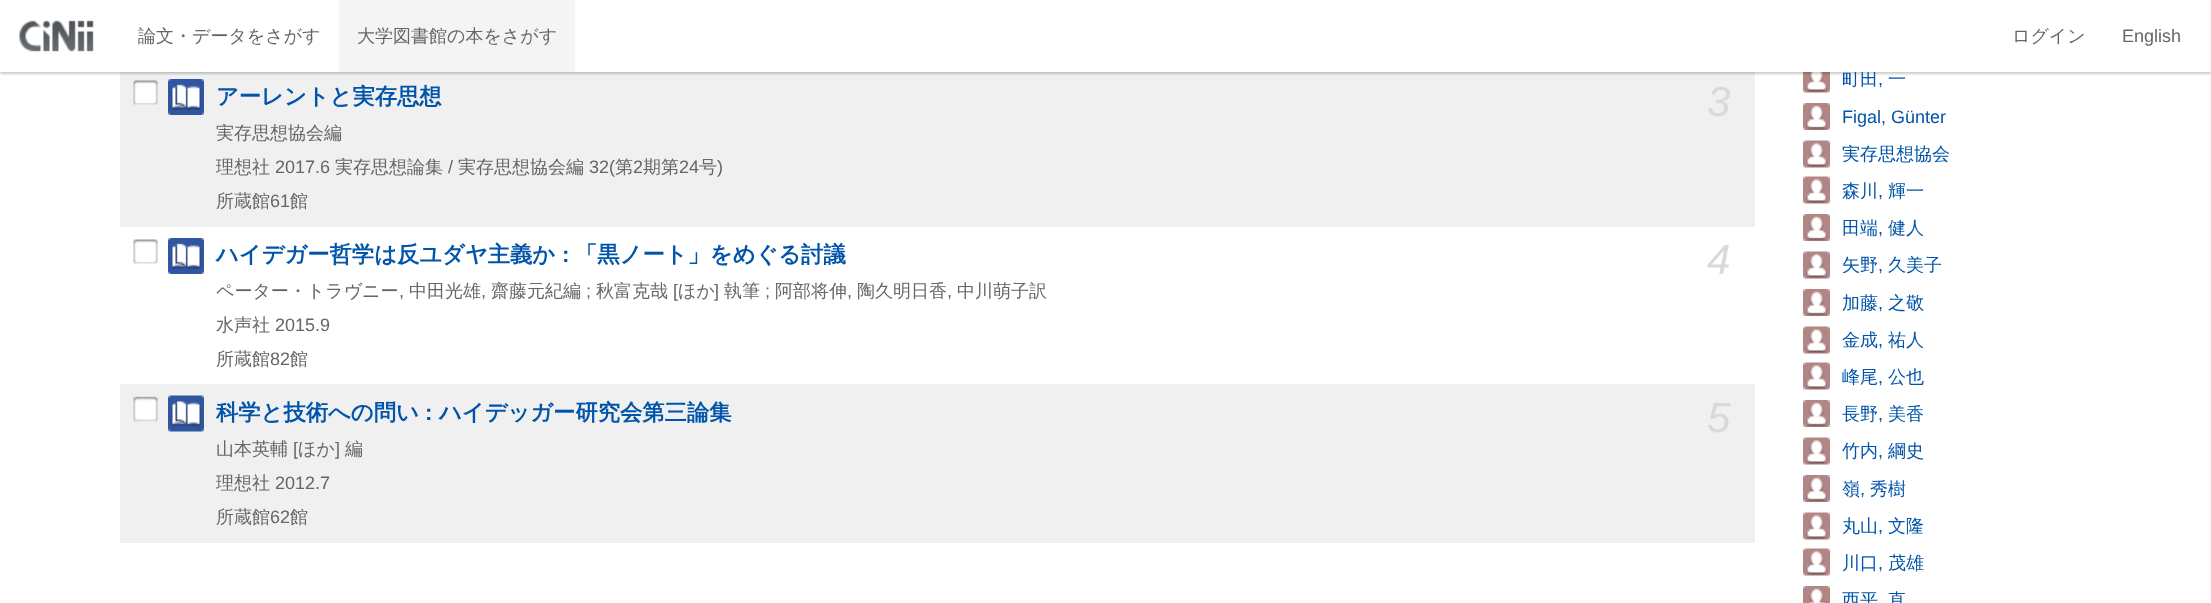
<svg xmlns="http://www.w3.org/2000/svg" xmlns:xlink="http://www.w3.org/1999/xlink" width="2211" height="603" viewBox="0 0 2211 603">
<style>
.cls-1{font:bold 22.3px WenQuanYi Zen Hei;fill:#0055aa}
.cls-2{font:500 18px WenQuanYi Zen Hei;fill:#666666}
.cls-3{font:18px Liberation Sans;fill:#666666}
.cls-4{font:italic 42px Liberation Sans;fill:#d9d9d9}
.cls-5{font:bold 22.3px Liberation Sans;fill:#0055aa}
.cls-6{font:500 18px WenQuanYi Zen Hei;fill:#0055aa}
.cls-7{font:18px Liberation Sans;fill:#0055aa}
</style>
<rect width="100%" height="100%" fill="#ffffff"/>
<rect fill="#f0f0f0" x="120" y="72" width="1635" height="155"/>
<image xlink:href="image7.png" x="1803" y="72" width="27" height="21"/>
<rect fill="#000000" fill-opacity="0.2" filter="blur(1px)" x="0" y="2" width="2211" height="72"/>
<image xlink:href="image1.png" x="133" y="80" width="25" height="25"/>
<image xlink:href="image2.png" x="168" y="79" width="36" height="36"/>
<image xlink:href="image3.png" x="133" y="239" width="25" height="25"/>
<image xlink:href="image4.png" x="168" y="238" width="36" height="36"/>
<rect fill="#f0f0f0" x="120" y="384" width="1635" height="159"/>
<image xlink:href="image5.png" x="133" y="396" width="25" height="26"/>
<image xlink:href="image6.png" x="168" y="395" width="36" height="37"/>
<image xlink:href="image8.png" x="1803" y="103" width="27" height="27"/>
<image xlink:href="image9.png" x="1803" y="140" width="27" height="28"/>
<image xlink:href="image9.png" x="1803" y="176" width="27" height="28"/>
<image xlink:href="image8.png" x="1803" y="214" width="27" height="27"/>
<image xlink:href="image9.png" x="1803" y="251" width="27" height="28"/>
<image xlink:href="image8.png" x="1803" y="289" width="27" height="27"/>
<image xlink:href="image9.png" x="1803" y="326" width="27" height="28"/>
<image xlink:href="image9.png" x="1803" y="362" width="27" height="28"/>
<image xlink:href="image8.png" x="1803" y="400" width="27" height="27"/>
<image xlink:href="image9.png" x="1803" y="437" width="27" height="28"/>
<image xlink:href="image8.png" x="1803" y="475" width="27" height="27"/>
<image xlink:href="image9.png" x="1803" y="512" width="27" height="28"/>
<image xlink:href="image9.png" x="1803" y="548" width="27" height="28"/>
<image xlink:href="image10.png" x="1803" y="586" width="27" height="17"/>
<text class="cls-1" x="216" y="104">アーレントと実存思想</text>
<text class="cls-2"><tspan x="216" y="139">実存思想協会編</tspan><tspan x="216" y="173">理想社</tspan></text>
<text class="cls-3" x="275" y="173">2017.6</text>
<text class="cls-2" x="335" y="173">実存思想論集</text>
<text class="cls-3" x="448" y="173">/</text>
<text class="cls-2" x="458" y="173">実存思想協会編</text>
<text class="cls-3" x="589" y="173">32(</text>
<text class="cls-2" x="615" y="173">第</text>
<text class="cls-3" x="633" y="173">2</text>
<text class="cls-2" x="643" y="173">期第</text>
<text class="cls-3" x="679" y="173">24</text>
<text class="cls-2" x="699" y="173">号</text>
<text class="cls-3" x="717" y="173">)</text>
<text class="cls-2" x="216" y="207">所蔵館</text>
<text class="cls-3" x="270" y="207">61</text>
<text class="cls-2" x="290" y="207">館</text>
<text class="cls-4" x="1707" y="116">3</text>
<text class="cls-1" x="216" y="262">ハイデガー哲学は反ユダヤ主義か</text>
<text class="cls-5" x="562" y="262">:</text>
<text class="cls-1" x="575" y="262">「黒ノート」をめぐる討議</text>
<text class="cls-2" x="216" y="297">ペーター・トラヴニー</text>
<text class="cls-3" x="399" y="297">,</text>
<text class="cls-2" x="409" y="297">中田光雄</text>
<text class="cls-3" x="481" y="297">,</text>
<text class="cls-2" x="491" y="297">齋藤元紀編</text>
<text class="cls-3" x="586" y="297">;</text>
<text class="cls-2" x="596" y="297">秋富克哉</text>
<text class="cls-3" x="673" y="297">[</text>
<text class="cls-2" x="678" y="297">ほか</text>
<text class="cls-3" x="714" y="297">]</text>
<text class="cls-2" x="724" y="297">執筆</text>
<text class="cls-3" x="765" y="297">;</text>
<text class="cls-2" x="775" y="297">阿部将伸</text>
<text class="cls-3" x="847" y="297">,</text>
<text class="cls-2" x="857" y="297">陶久明日香</text>
<text class="cls-3" x="947" y="297">,</text>
<text class="cls-2" x="957" y="297">中川萌子訳</text>
<text class="cls-2" x="216" y="331">水声社</text>
<text class="cls-3" x="275" y="331">2015.9</text>
<text class="cls-2" x="216" y="365">所蔵館</text>
<text class="cls-3" x="270" y="365">82</text>
<text class="cls-2" x="290" y="365">館</text>
<text class="cls-4" x="1707" y="274">4</text>
<text class="cls-1" x="216" y="420">科学と技術への問い</text>
<text class="cls-5" x="425" y="420">:</text>
<text class="cls-1" x="439" y="420">ハイデッガー研究会第三論集</text>
<text class="cls-2" x="216" y="455">山本英輔</text>
<text class="cls-3" x="293" y="455">[</text>
<text class="cls-2" x="298" y="455">ほか</text>
<text class="cls-3" x="335" y="455">]</text>
<text class="cls-2" x="345" y="455">編</text>
<text class="cls-2" x="216" y="489">理想社</text>
<text class="cls-3" x="275" y="489">2012.7</text>
<text class="cls-2" x="216" y="523">所蔵館</text>
<text class="cls-3" x="270" y="523">62</text>
<text class="cls-2" x="290" y="523">館</text>
<text class="cls-4" x="1707" y="432">5</text>
<text class="cls-6" x="1842" y="85">町田</text>
<rect fill="#ffffff" x="0" y="0" width="2211" height="72"/>
<rect fill="#f4f4f4" x="339" y="0" width="236" height="72"/>
<text class="cls-2" x="357" y="42">大学図書館の本をさがす</text>
<text class="cls-2" x="138" y="42">論文・データをさがす</text>
<text class="cls-3" x="2122" y="42">English</text>
<text class="cls-2" x="2012" y="42">ログイン</text>
<image xlink:href="image0.png" x="19" y="20" width="75" height="32"/>
<text class="cls-6" x="1888" y="85">一</text>
<text class="cls-7" x="1878" y="85">,</text>
<text class="cls-7" x="1842" y="123">Figal, Günter</text>
<text class="cls-6" x="1842" y="160">実存思想協会</text>
<text class="cls-6" x="1842" y="197">森川</text>
<text class="cls-7" x="1878" y="197">,</text>
<text class="cls-6" x="1888" y="197">輝一</text>
<text class="cls-6" x="1842" y="234">田端</text>
<text class="cls-7" x="1878" y="234">,</text>
<text class="cls-6" x="1888" y="234">健人</text>
<text class="cls-6" x="1842" y="271">矢野</text>
<text class="cls-7" x="1878" y="271">,</text>
<text class="cls-6" x="1888" y="271">久美子</text>
<text class="cls-6" x="1842" y="309">加藤</text>
<text class="cls-7" x="1878" y="309">,</text>
<text class="cls-6" x="1888" y="309">之敬</text>
<text class="cls-6" x="1842" y="346">金成</text>
<text class="cls-7" x="1878" y="346">,</text>
<text class="cls-6" x="1888" y="346">祐人</text>
<text class="cls-6" x="1842" y="383">峰尾</text>
<text class="cls-7" x="1878" y="383">,</text>
<text class="cls-6" x="1888" y="383">公也</text>
<text class="cls-6" x="1842" y="420">長野</text>
<text class="cls-7" x="1878" y="420">,</text>
<text class="cls-6" x="1888" y="420">美香</text>
<text class="cls-6" x="1842" y="457">竹内</text>
<text class="cls-7" x="1878" y="457">,</text>
<text class="cls-6" x="1888" y="457">綱史</text>
<text class="cls-6" x="1842" y="495">嶺</text>
<text class="cls-7" x="1860" y="495">,</text>
<text class="cls-6" x="1870" y="495">秀樹</text>
<text class="cls-6" x="1842" y="532">丸山</text>
<text class="cls-7" x="1878" y="532">,</text>
<text class="cls-6" x="1888" y="532">文隆</text>
<text class="cls-6" x="1842" y="569">川口</text>
<text class="cls-7" x="1878" y="569">,</text>
<text class="cls-6" x="1888" y="569">茂雄</text>
<text class="cls-6" x="1842" y="606">西平</text>
<text class="cls-6" x="1888" y="606">直</text>
</svg>
